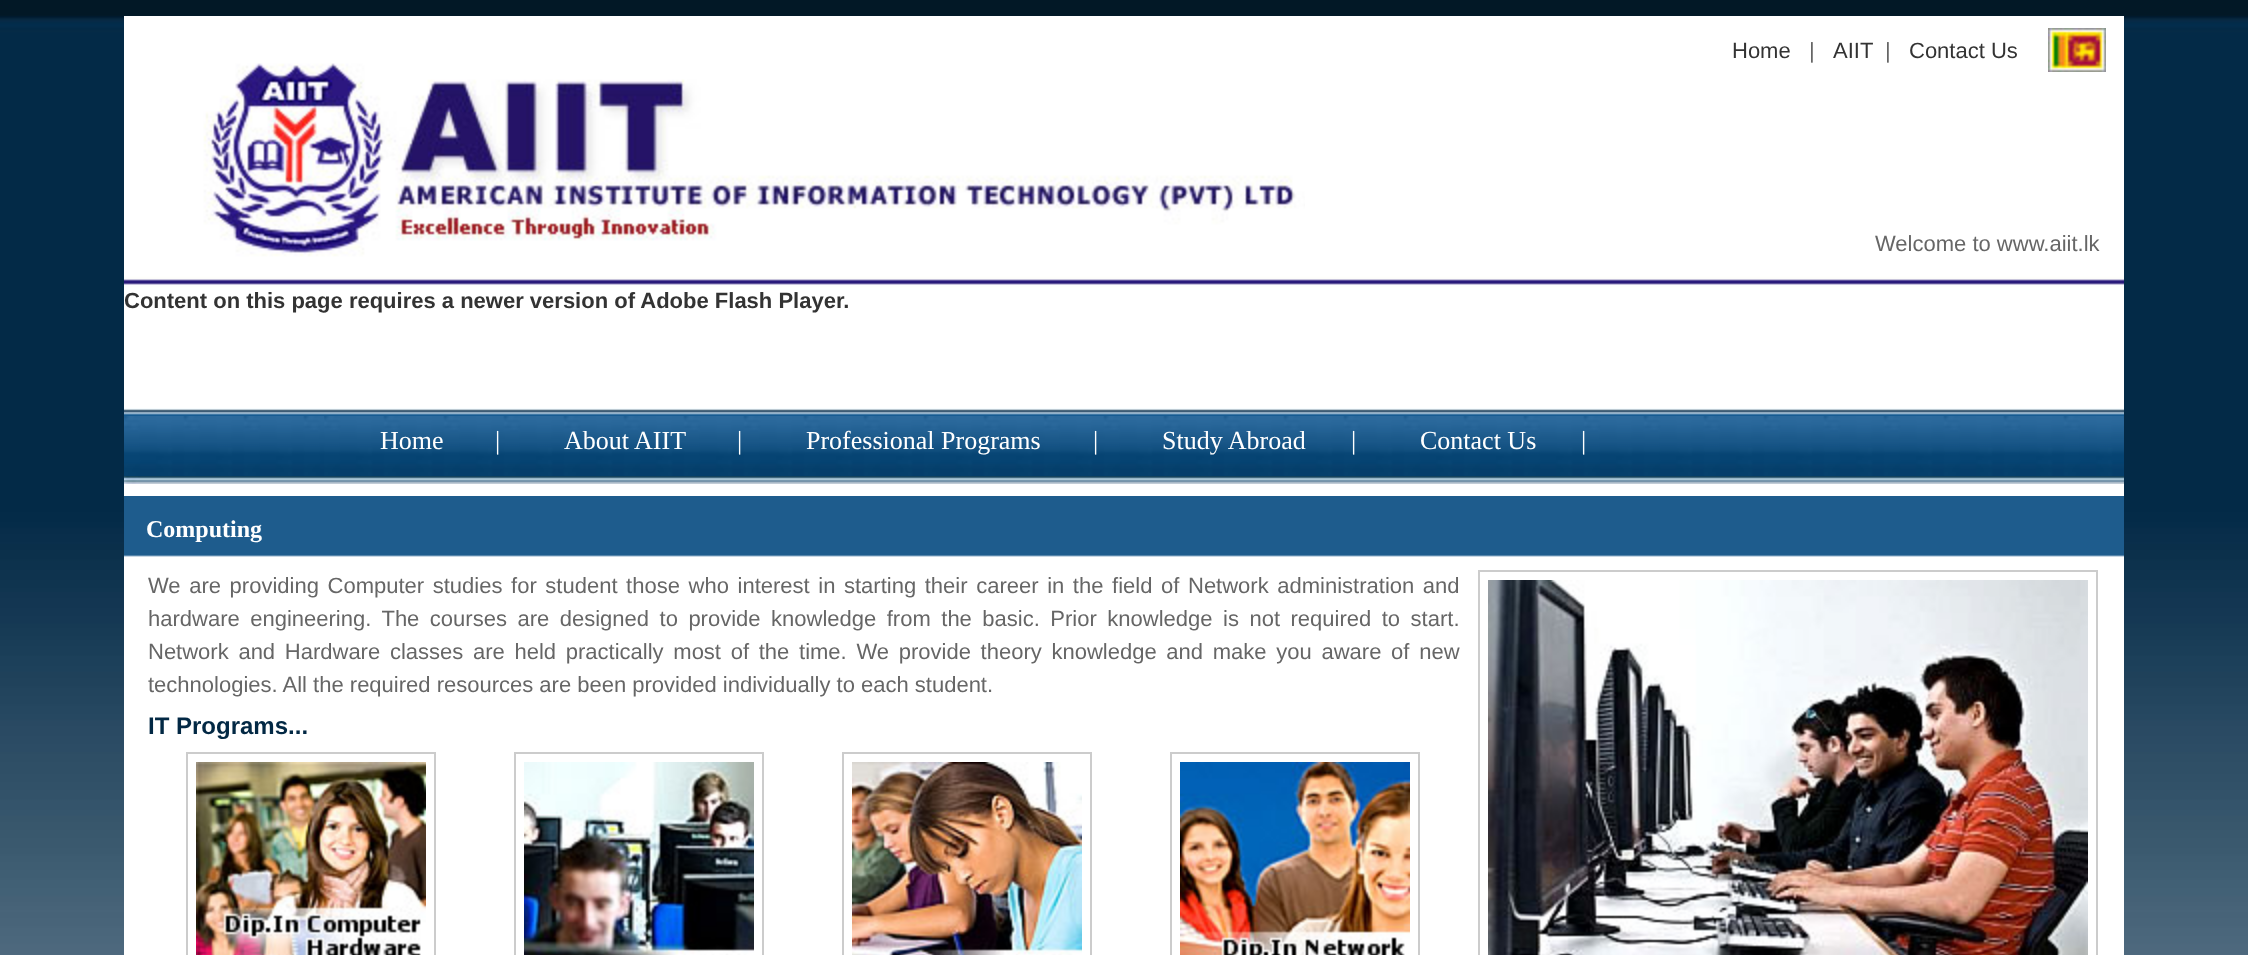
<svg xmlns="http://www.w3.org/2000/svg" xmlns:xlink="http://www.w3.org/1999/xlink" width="2248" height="955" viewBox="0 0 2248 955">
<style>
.cls-1{font:22px Liberation Sans;fill:#333333}
.cls-2{font:22px Liberation Sans;fill:#666666}
.cls-3{font:bold 22px Liberation Sans;fill:#333333}
.cls-4{font:26px Liberation Serif;fill:#ffffff}
.cls-5{font:bold 24px Liberation Serif;fill:#ffffff}
.cls-6{font:bold 24px Liberation Sans;fill:#022844}
</style>
<rect width="100%" height="100%" fill="#ffffff"/>
<image xlink:href="image0.png" x="0" y="0" width="2248" height="955"/>
<rect fill="#ffffff" x="124" y="16" width="2000" height="260"/>
<image xlink:href="image1.png" x="203" y="63" width="1102" height="194"/>
<image xlink:href="image2.png" x="2048" y="28" width="58" height="44"/>
<image xlink:href="image3.png" x="124" y="276" width="2000" height="12"/>
<rect fill="#ffffff" x="124" y="288" width="2000" height="120"/>
<image xlink:href="image4.png" x="124" y="408" width="2000" height="8"/>
<image xlink:href="image5.png" x="124" y="416" width="200" height="60"/>
<image xlink:href="image6.png" x="324" y="416" width="1800" height="60"/>
<image xlink:href="image7.png" x="124" y="476" width="2000" height="8"/>
<rect fill="#ffffff" x="124" y="484" width="2000" height="471"/>
<image xlink:href="image8.png" x="124" y="496" width="2000" height="61"/>
<rect fill="none" stroke="#cccccc" stroke-width="2" x="1479" y="571" width="618" height="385"/>
<image xlink:href="image9.png" x="1488" y="580" width="600" height="375"/>
<rect fill="none" stroke="#cccccc" stroke-width="2" x="187" y="753" width="248" height="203"/>
<image xlink:href="image10.png" x="196" y="762" width="230" height="193"/>
<rect fill="none" stroke="#cccccc" stroke-width="2" x="515" y="753" width="248" height="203"/>
<image xlink:href="image11.png" x="524" y="762" width="230" height="193"/>
<rect fill="none" stroke="#cccccc" stroke-width="2" x="843" y="753" width="248" height="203"/>
<image xlink:href="image12.png" x="852" y="762" width="230" height="193"/>
<rect fill="none" stroke="#cccccc" stroke-width="2" x="1171" y="753" width="248" height="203"/>
<image xlink:href="image13.png" x="1180" y="762" width="230" height="193"/>
<text class="cls-1" x="1732" y="58">Home</text>
<text class="cls-2" x="1809" y="58">|</text>
<text class="cls-1" x="1833" y="58">AIIT</text>
<text class="cls-2" x="1885" y="58">|</text>
<text class="cls-1" x="1909" y="58">Contact Us</text>
<text class="cls-2" x="1875" y="251">Welcome to www.aiit.lk</text>
<text class="cls-3" x="124" y="308">Content on this page requires a newer version of Adobe Flash Player.</text>
<text class="cls-4" x="380" y="449">Home</text>
<text class="cls-4" x="495" y="449">|</text>
<text class="cls-4" x="564" y="449">About AIIT</text>
<text class="cls-4" x="737" y="449">|</text>
<text class="cls-4" x="806" y="449">Professional Programs</text>
<text class="cls-4" x="1093" y="449">|</text>
<text class="cls-4" x="1162" y="449">Study Abroad</text>
<text class="cls-4" x="1351" y="449">|</text>
<text class="cls-4" x="1420" y="449">Contact Us</text>
<text class="cls-4" x="1581" y="449">|</text>
<text class="cls-5" x="146" y="537">Computing</text>
<text class="cls-2"><tspan x="148" y="593" word-spacing="2.5">We are providing Computer studies for student those who interest in starting their career in the field of Network administration and</tspan><tspan x="148" y="626" word-spacing="4.4">hardware engineering. The courses are designed to provide knowledge from the basic. Prior knowledge is not required to start.</tspan><tspan x="148" y="659" word-spacing="3.6">Network and Hardware classes are held practically most of the time. We provide theory knowledge and make you aware of new</tspan><tspan x="148" y="692">technologies. All the required resources are been provided individually to each student.</tspan></text>
<text class="cls-6" x="148" y="734">IT Programs...</text>
</svg>
